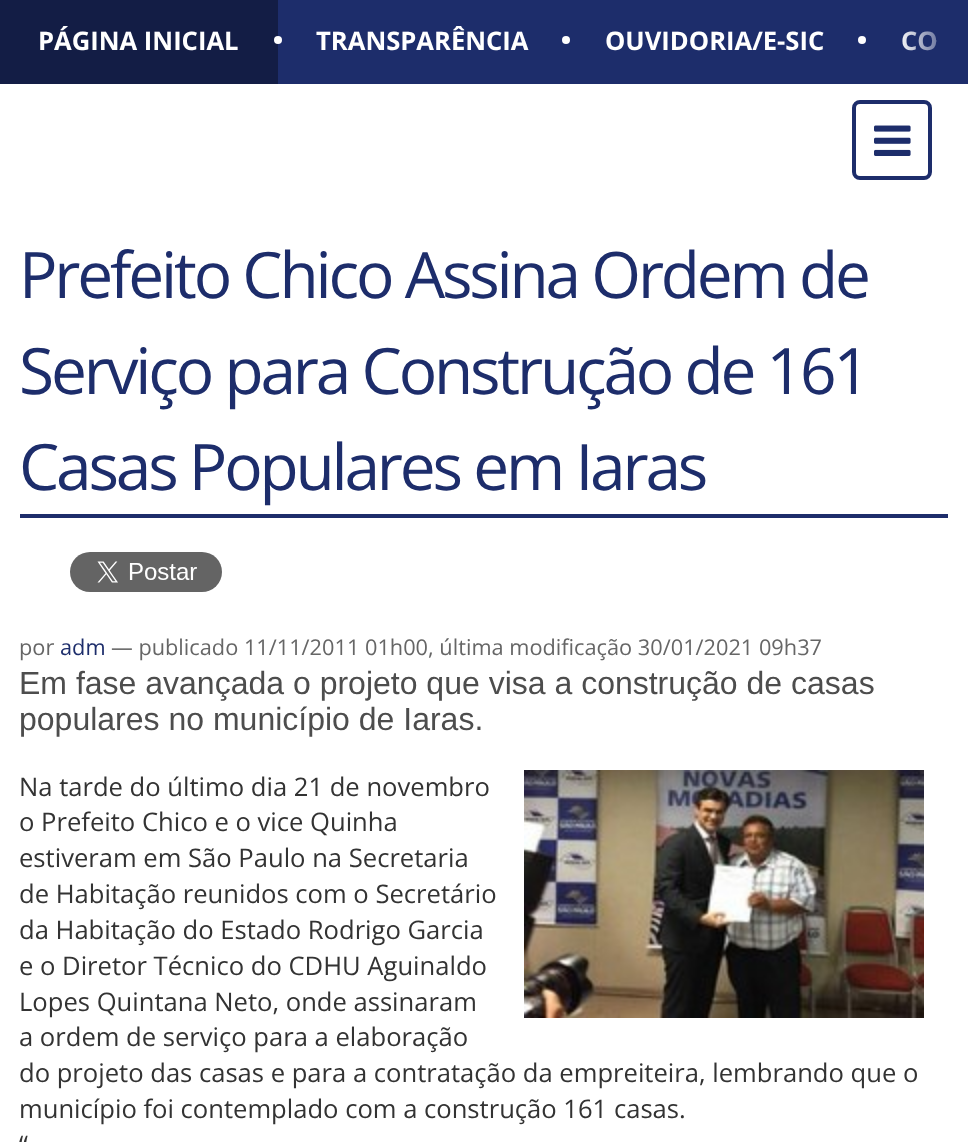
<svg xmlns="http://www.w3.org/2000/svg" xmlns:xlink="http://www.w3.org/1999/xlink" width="968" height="1148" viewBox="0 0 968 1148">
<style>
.cls-1{font:bold 25.6px Open Sans;fill:#ffffff}
.cls-2{font:64px Open Sans;letter-spacing:-3.2px;fill:#1d2d6b}
.cls-3{font:21.75px Open Sans;fill:#666666}
.cls-4{font:21.75px Open Sans;fill:#1d2d6b}
.cls-5{font:32px Liberation Sans;fill:#4d4d4d}
.cls-6{font:25.6px Open Sans;fill:#333333}
</style>
<defs>
<linearGradient id="g1" gradientUnits="userSpaceOnUse" x1="898" y1="41" x2="968" y2="41"><stop offset="0" stop-color="#1d2d6b" stop-opacity="0"/><stop offset="0.8" stop-color="#1d2d6b" stop-opacity="0.9"/></linearGradient>
</defs>
<rect width="100%" height="100%" fill="#ffffff"/>
<rect fill="#1d2d6b" x="278" y="0" width="690" height="84"/>
<rect fill="#131d45" x="0" y="0" width="278" height="84"/>
<circle fill="#ffffff" cx="278" cy="40" r="4"/>
<circle fill="#ffffff" cx="566" cy="40" r="4"/>
<circle fill="#ffffff" cx="862" cy="40" r="4"/>
<rect fill="none" stroke="#1d2d6b" stroke-width="4" x="854" y="102" width="76" height="76" rx="6"/>
<image xlink:href="image0.png" x="874" y="125" width="37" height="31"/>
<rect fill="#1d2d6b" x="20" y="514" width="928" height="4"/>
<image xlink:href="image1.png" x="70" y="552" width="152" height="40"/>
<image xlink:href="image2.png" x="524" y="770" width="400" height="248"/>
<text class="cls-1" x="38" y="50">PÁGINA INICIAL</text>
<text class="cls-1" x="316" y="50">TRANSPARÊNCIA</text>
<text class="cls-1" x="605" y="50">OUVIDORIA/E-SIC</text>
<text class="cls-1" x="901" y="50">CO</text>
<rect fill="url(#g1)" x="902" y="31" width="34" height="20"/>
<text class="cls-2"><tspan x="19" y="298">Prefeito Chico Assina Ordem de</tspan><tspan x="19" y="394">Serviço para Construção de 161</tspan><tspan x="19" y="490">Casas Populares em Iaras</tspan></text>
<text class="cls-3" x="19" y="655">por</text>
<text class="cls-4" x="60" y="655">adm</text>
<text class="cls-3" x="111" y="655">— publicado 11/11/2011 01h00, última modificação 30/01/2021 09h37</text>
<text class="cls-5"><tspan x="19" y="694">Em fase avançada o projeto que visa a construção de casas</tspan><tspan x="19" y="730">populares no município de Iaras.</tspan></text>
<text class="cls-6"><tspan x="19" y="796">Na tarde do último dia 21 de novembro</tspan><tspan x="19" y="831">o Prefeito Chico e o vice Quinha</tspan><tspan x="19" y="867">estiveram em São Paulo na Secretaria</tspan><tspan x="19" y="903">de Habitação reunidos com o Secretário</tspan><tspan x="19" y="939">da Habitação do Estado Rodrigo Garcia</tspan><tspan x="19" y="975">e o Diretor Técnico do CDHU Aguinaldo</tspan><tspan x="19" y="1011">Lopes Quintana Neto, onde assinaram</tspan><tspan x="19" y="1046">a ordem de serviço para a elaboração</tspan><tspan x="19" y="1082">do projeto das casas e para a contratação da empreiteira, lembrando que o</tspan><tspan x="19" y="1118">município foi contemplado com a construção 161 casas.</tspan><tspan x="19" y="1154">“</tspan></text>
</svg>
